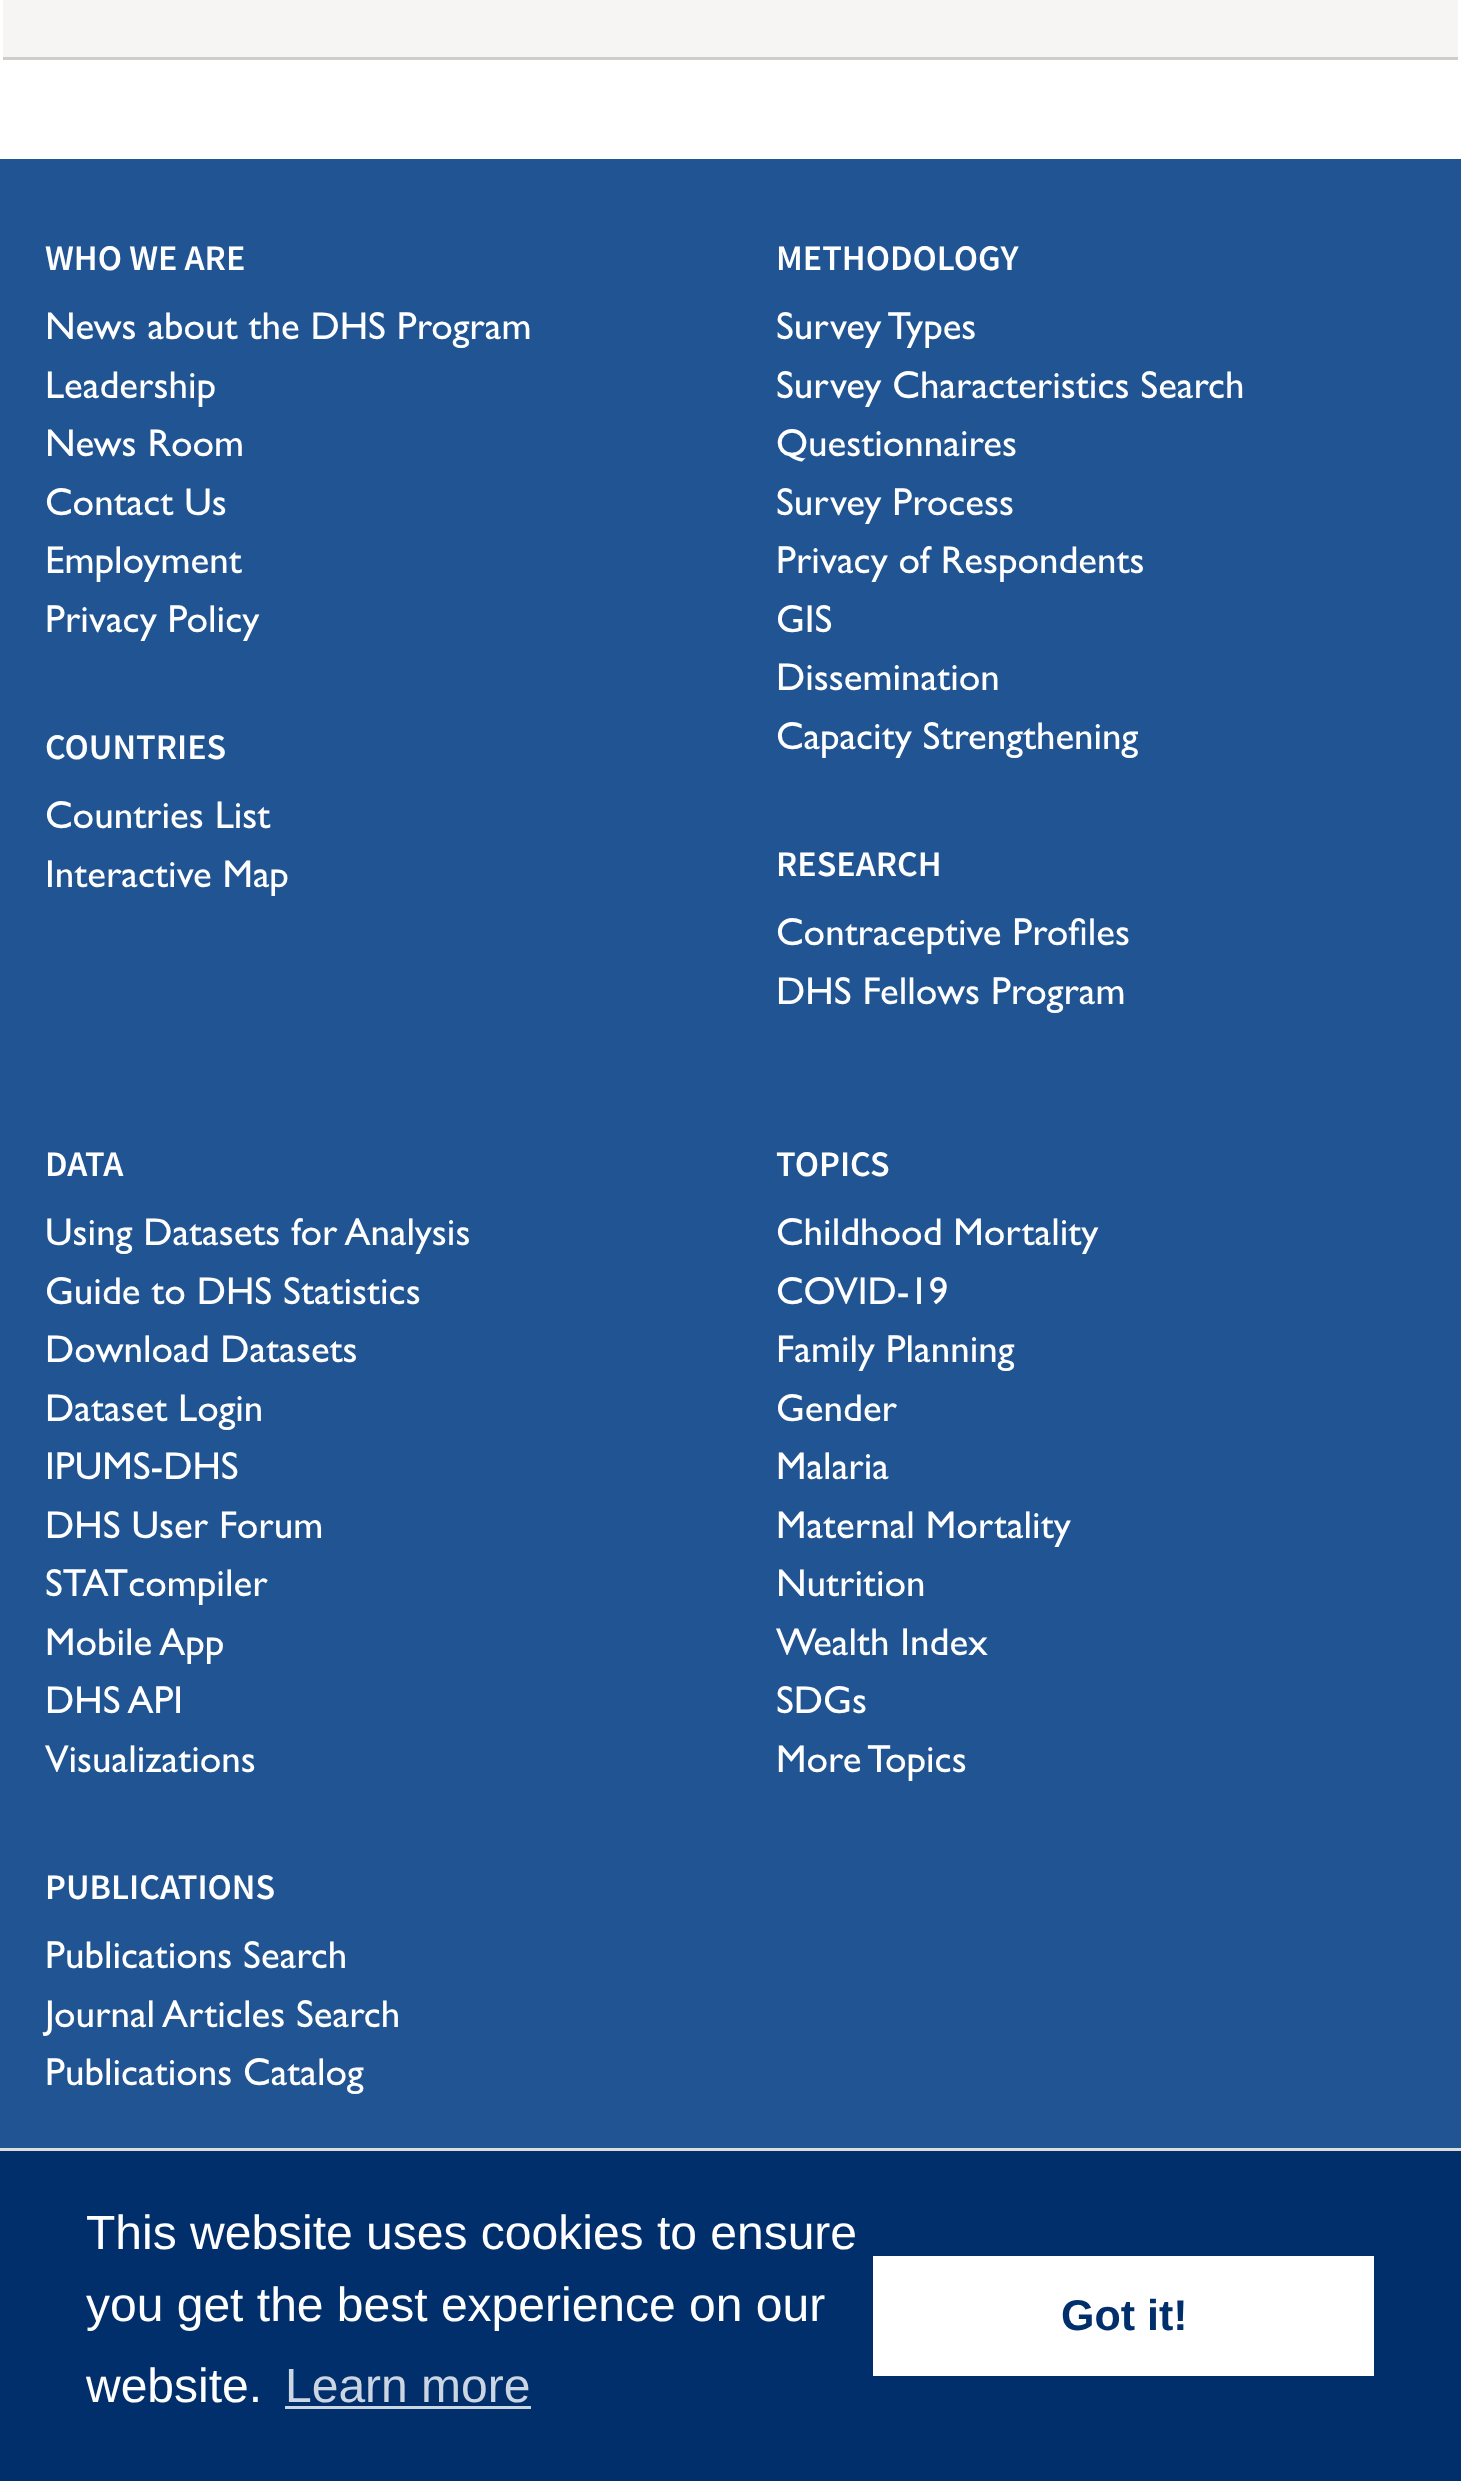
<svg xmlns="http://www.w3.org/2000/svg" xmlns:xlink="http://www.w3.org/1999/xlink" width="1461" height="2481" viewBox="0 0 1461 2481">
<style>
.cls-1{font:600 36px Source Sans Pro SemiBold;fill:#ffffff}
.cls-2{font:39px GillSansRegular;fill:#ffffff}
.cls-3{font:48px Liberation Sans;fill:#ffffff}
.cls-4{font:48px Liberation Sans;fill:#ccd5e2}
.cls-5{font:bold 43px Liberation Sans;fill:#002f6c}
</style>
<rect width="100%" height="100%" fill="#ffffff"/>
<rect fill="#f6f5f4" x="3" y="0" width="1455" height="57"/>
<rect fill="#cfcdc9" x="3" y="57" width="1455" height="3"/>
<rect fill="#205493" x="0" y="159" width="1461" height="1989"/>
<rect fill="#dddddd" x="0" y="2148" width="1461" height="3"/>
<rect fill="#002f6c" x="0" y="2151" width="1461" height="330"/>
<rect fill="#ccd5e2" x="285" y="2406" width="246" height="3"/>
<rect fill="#ffffff" x="873" y="2256" width="501" height="120"/>
<text class="cls-1" x="45" y="270">WHO WE ARE</text>
<text class="cls-2"><tspan x="45" y="339">News about the DHS Program</tspan><tspan x="45" y="398">Leadership</tspan><tspan x="45" y="456">News Room</tspan><tspan x="45" y="515">Contact Us</tspan><tspan x="45" y="573">Employment</tspan><tspan x="45" y="632">Privacy Policy</tspan></text>
<text class="cls-1" x="45" y="759">COUNTRIES</text>
<text class="cls-2"><tspan x="45" y="828">Countries List</tspan><tspan x="45" y="887">Interactive Map</tspan></text>
<text class="cls-1" x="776" y="270">METHODOLOGY</text>
<text class="cls-2"><tspan x="776" y="339">Survey Types</tspan><tspan x="776" y="398">Survey Characteristics Search</tspan><tspan x="776" y="456">Questionnaires</tspan><tspan x="776" y="515">Survey Process</tspan><tspan x="776" y="573">Privacy of Respondents</tspan><tspan x="776" y="632">GIS</tspan><tspan x="776" y="690">Dissemination</tspan><tspan x="776" y="749">Capacity Strengthening</tspan></text>
<text class="cls-1" x="776" y="876">RESEARCH</text>
<text class="cls-2"><tspan x="776" y="945">Contraceptive Profiles</tspan><tspan x="776" y="1004">DHS Fellows Program</tspan></text>
<text class="cls-1" x="45" y="1176">DATA</text>
<text class="cls-2"><tspan x="45" y="1245">Using Datasets for Analysis</tspan><tspan x="45" y="1304">Guide to DHS Statistics</tspan><tspan x="45" y="1362">Download Datasets</tspan><tspan x="45" y="1421">Dataset Login</tspan><tspan x="45" y="1479">IPUMS-DHS</tspan><tspan x="45" y="1538">DHS User Forum</tspan><tspan x="45" y="1596">STATcompiler</tspan><tspan x="45" y="1655">Mobile App</tspan><tspan x="45" y="1713">DHS API</tspan><tspan x="45" y="1772">Visualizations</tspan></text>
<text class="cls-1" x="45" y="1899">PUBLICATIONS</text>
<text class="cls-2"><tspan x="45" y="1968">Publications Search</tspan><tspan x="45" y="2027">Journal Articles Search</tspan><tspan x="45" y="2085">Publications Catalog</tspan></text>
<text class="cls-1" x="776" y="1176">TOPICS</text>
<text class="cls-2"><tspan x="776" y="1245">Childhood Mortality</tspan><tspan x="776" y="1304">COVID-19</tspan><tspan x="776" y="1362">Family Planning</tspan><tspan x="776" y="1421">Gender</tspan><tspan x="776" y="1479">Malaria</tspan><tspan x="776" y="1538">Maternal Mortality</tspan><tspan x="776" y="1596">Nutrition</tspan><tspan x="776" y="1655">Wealth Index</tspan><tspan x="776" y="1713">SDGs</tspan><tspan x="776" y="1772">More Topics</tspan></text>
<text class="cls-3"><tspan x="86" y="2249">This website uses cookies to ensure</tspan><tspan x="86" y="2321">you get the best experience on our</tspan><tspan x="86" y="2402">website.</tspan></text>
<text class="cls-4" x="285" y="2402">Learn more</text>
<text class="cls-5" x="1061" y="2330">Got it!</text>
</svg>
